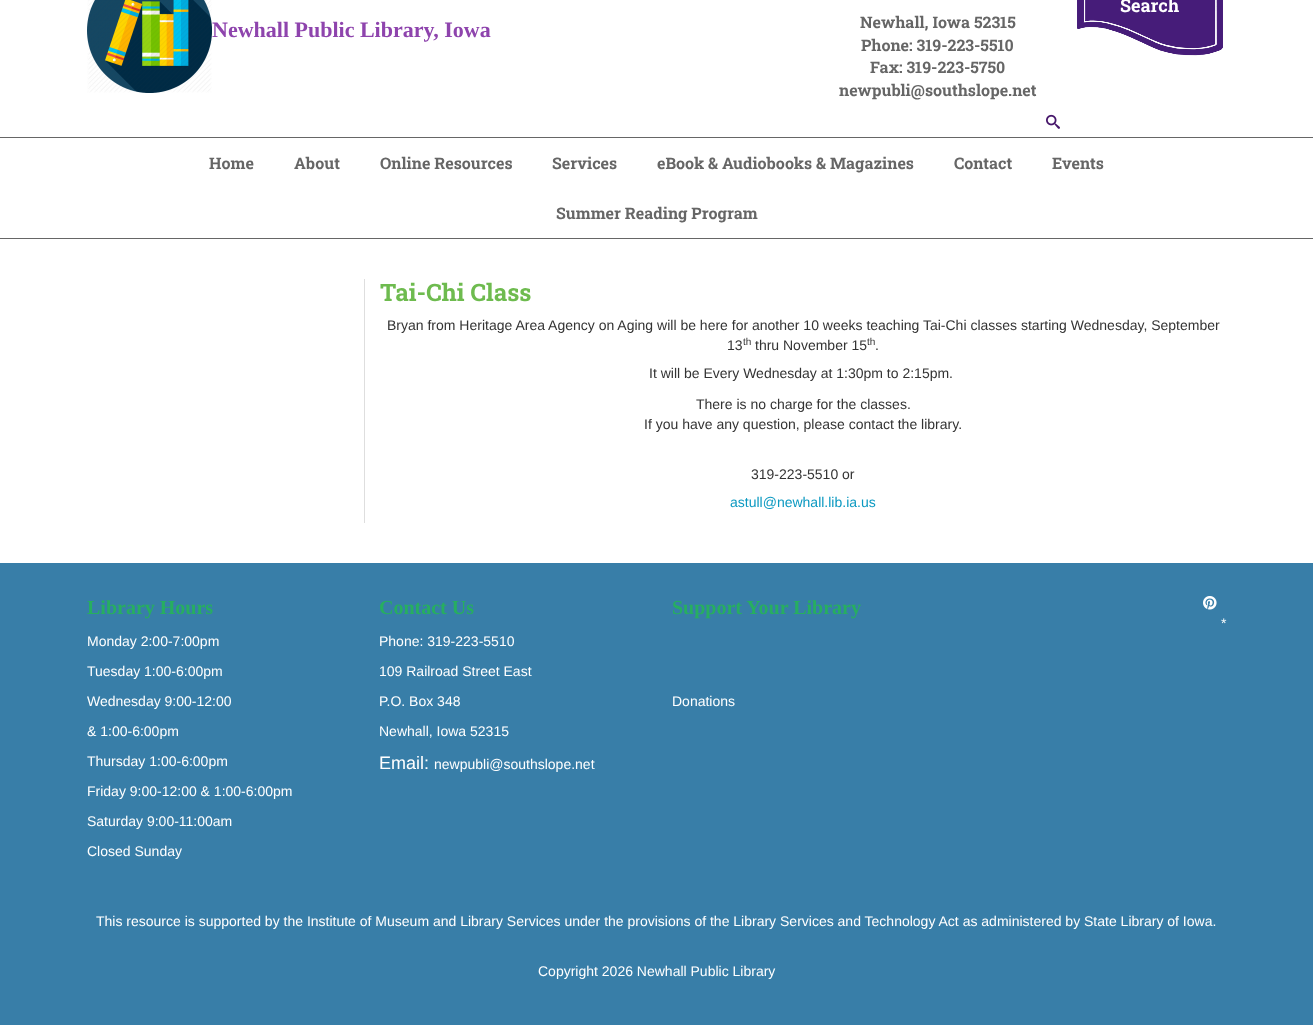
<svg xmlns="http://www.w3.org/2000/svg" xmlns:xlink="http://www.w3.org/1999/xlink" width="1313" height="1025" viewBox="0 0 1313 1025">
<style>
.cls-1{font:bold 22px Liberation Serif;fill:#8e44ad}
.cls-2{font:bold 18px Roboto Slab;fill:#ffffff}
.cls-3{font:bold 16px Roboto Slab;fill:#666666}
.cls-4{font:bold 24px Roboto Slab;fill:#6ebb4f}
.cls-5{font:14px Liberation Sans;fill:#333333}
.cls-6{font:10px Liberation Sans;fill:#333333}
.cls-7{font:14px Liberation Sans;fill:#0b99c1}
.cls-8{font:bold 20px Liberation Serif;fill:#27ae60}
.cls-9{font:14px Liberation Sans;fill:#ffffff}
.cls-10{font:18px Liberation Sans;fill:#ffffff}
</style>
<rect width="100%" height="100%" fill="#ffffff"/>
<image xlink:href="image0.png" x="87" y="0" width="125" height="93"/>
<rect fill="#461c79" x="1077" y="0" width="146" height="56"/>
<image xlink:href="image1.png" x="1073" y="0" width="154" height="62"/>
<image xlink:href="image2.png" x="1046" y="114" width="14" height="15"/>
<rect fill="#666666" x="0" y="137" width="1313" height="1"/>
<rect fill="#666666" x="0" y="238" width="1313" height="1"/>
<rect fill="#dedede" x="364" y="279" width="1" height="244"/>
<rect fill="#387ea8" x="0" y="563" width="1313" height="462"/>
<image xlink:href="image3.png" x="1203" y="596" width="14" height="14"/>
<text class="cls-1" x="212" y="37">Newhall Public Library, Iowa</text>
<text class="cls-2" x="1120" y="12">Search</text>
<text class="cls-3" x="860" y="28">Newhall, Iowa 52315</text>
<text class="cls-3" x="861" y="51">Phone: 319-223-5510</text>
<text class="cls-3" x="870" y="73">Fax: 319-223-5750</text>
<text class="cls-3" x="839" y="96">newpubli@southslope.net</text>
<text class="cls-3" x="209" y="169">Home</text>
<text class="cls-3" x="294" y="169">About</text>
<text class="cls-3" x="380" y="169">Online Resources</text>
<text class="cls-3" x="552" y="169">Services</text>
<text class="cls-3" x="657" y="169">eBook &amp; Audiobooks &amp; Magazines</text>
<text class="cls-3" x="954" y="169">Contact</text>
<text class="cls-3" x="1052" y="169">Events</text>
<text class="cls-3" x="556" y="219">Summer Reading Program</text>
<text class="cls-4" x="380" y="301">Tai-Chi Class</text>
<text class="cls-5" x="387" y="330">Bryan from Heritage Area Agency on Aging will be here for another 10 weeks teaching Tai-Chi classes starting Wednesday, September</text>
<text class="cls-5" x="727" y="350">13</text>
<text class="cls-6" x="743" y="345">th</text>
<text class="cls-5" x="755" y="350">thru November 15</text>
<text class="cls-6" x="867" y="345">th</text>
<text class="cls-5" x="875" y="350">.</text>
<text class="cls-5" x="649" y="378">It will be Every Wednesday at 1:30pm to 2:15pm.</text>
<text class="cls-5" x="696" y="409">There is no charge for the classes.</text>
<text class="cls-5" x="644" y="429">If you have any question, please contact the library.</text>
<text class="cls-5" x="751" y="479">319-223-5510 or</text>
<text class="cls-7" x="730" y="507">astull@newhall.lib.ia.us</text>
<text class="cls-8" x="87" y="614">Library Hours</text>
<text class="cls-9" x="87" y="646">Monday 2:00-7:00pm</text>
<text class="cls-9" x="87" y="676">Tuesday 1:00-6:00pm</text>
<text class="cls-9" x="87" y="706">Wednesday 9:00-12:00</text>
<text class="cls-9" x="87" y="736">&amp; 1:00-6:00pm</text>
<text class="cls-9" x="87" y="766">Thursday 1:00-6:00pm</text>
<text class="cls-9" x="87" y="796">Friday 9:00-12:00 &amp; 1:00-6:00pm</text>
<text class="cls-9" x="87" y="826">Saturday 9:00-11:00am</text>
<text class="cls-9" x="87" y="856">Closed Sunday</text>
<text class="cls-8" x="379" y="614">Contact Us</text>
<text class="cls-9" x="379" y="646">Phone: 319-223-5510</text>
<text class="cls-9" x="379" y="676">109 Railroad Street East</text>
<text class="cls-9" x="379" y="706">P.O. Box 348</text>
<text class="cls-9" x="379" y="736">Newhall, Iowa 52315</text>
<text class="cls-10" x="379" y="769">Email:</text>
<text class="cls-9" x="434" y="769">newpubli@southslope.net</text>
<text class="cls-8" x="672" y="614">Support Your Library</text>
<text class="cls-9" x="672" y="706">Donations</text>
<text class="cls-9" x="1221" y="628">*</text>
<text class="cls-9" x="96" y="926">This resource is supported by the Institute of Museum and Library Services under the provisions of the Library Services and Technology Act as administered by State Library of Iowa.</text>
<text class="cls-9" x="538" y="976">Copyright 2026 Newhall Public Library</text>
</svg>
